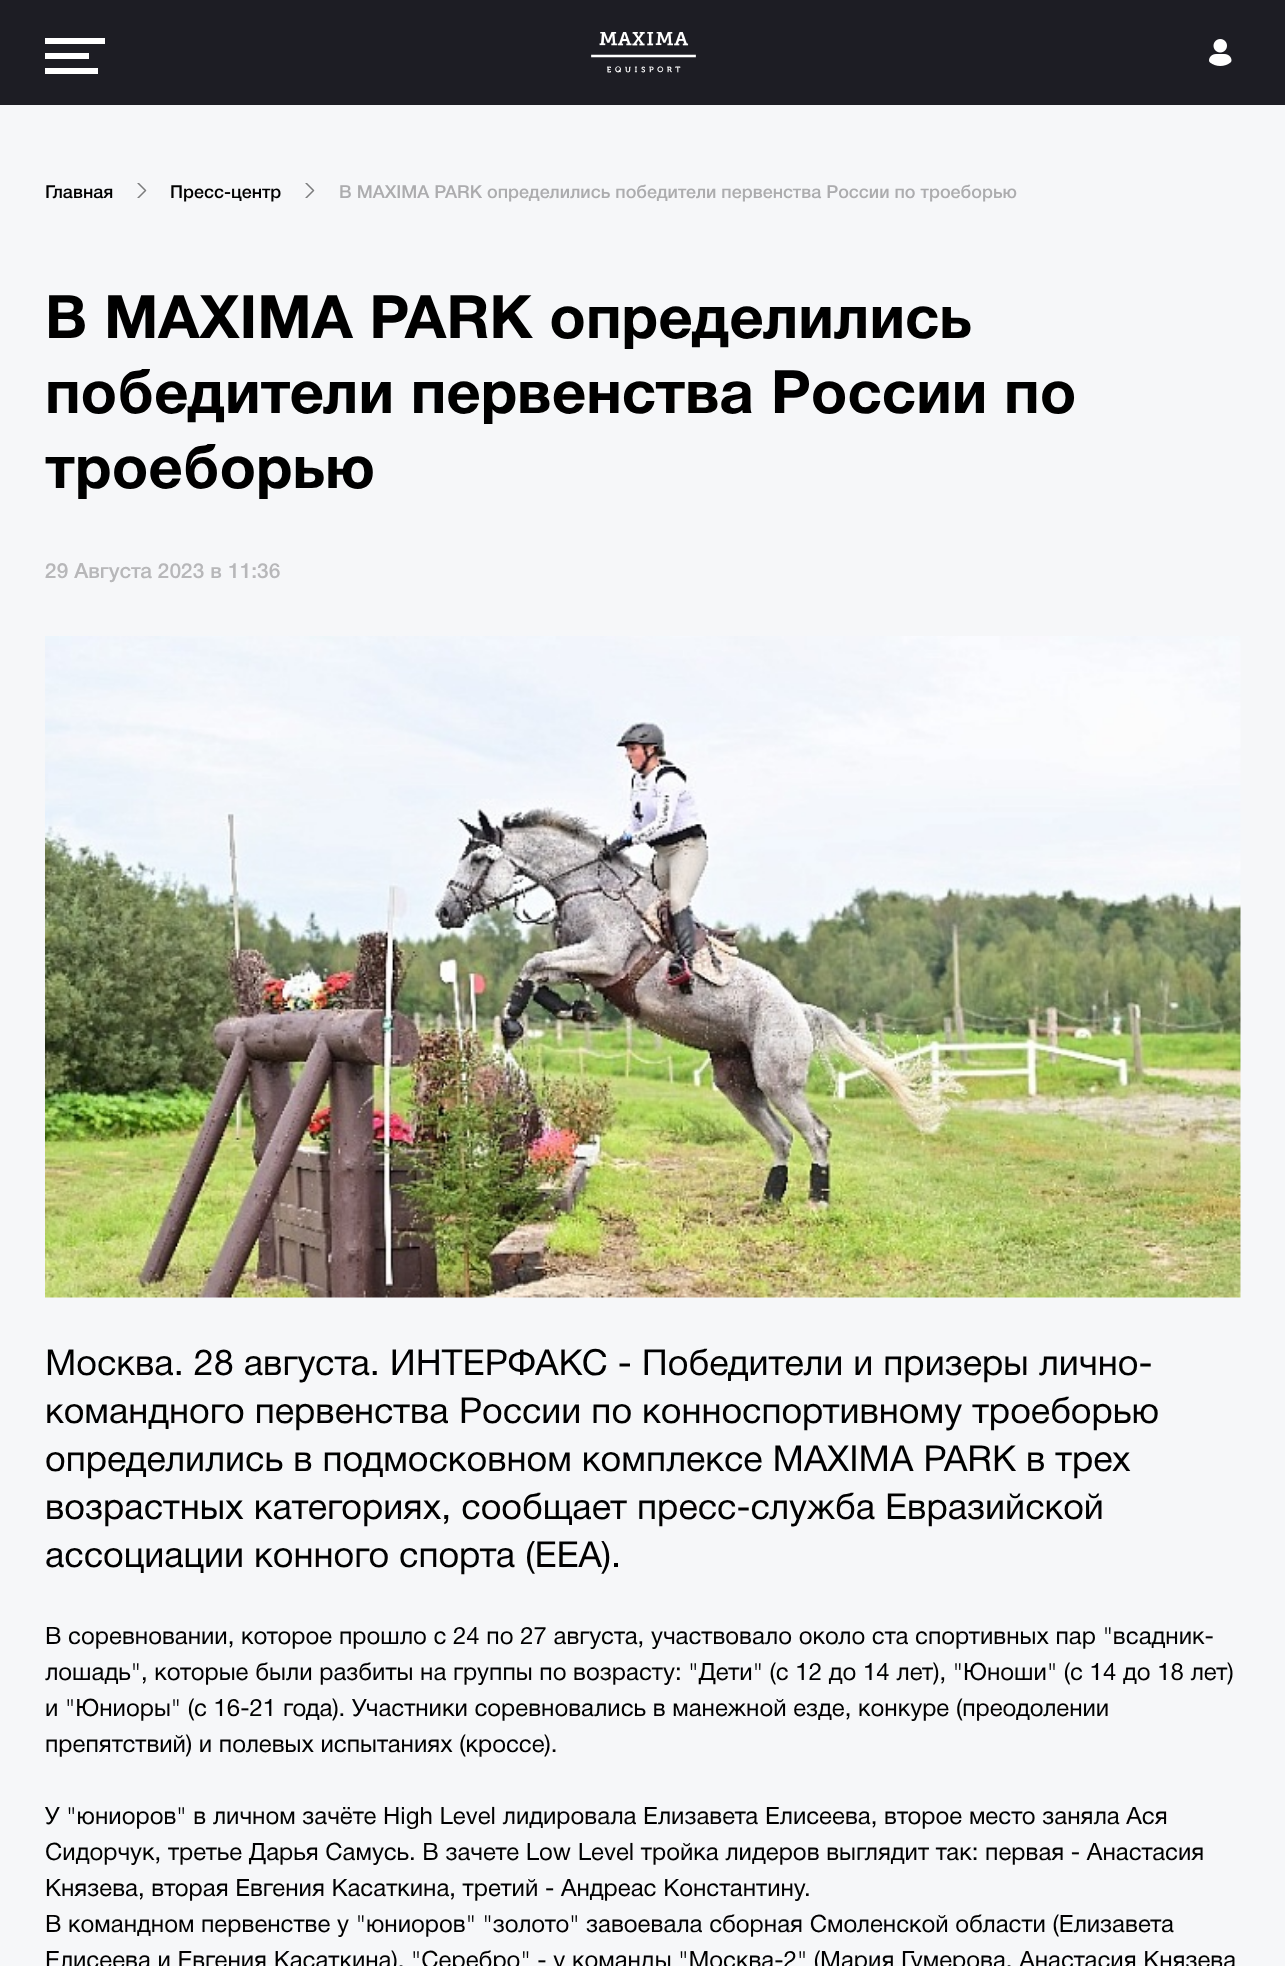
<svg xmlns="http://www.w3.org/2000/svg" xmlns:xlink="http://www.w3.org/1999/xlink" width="1285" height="1966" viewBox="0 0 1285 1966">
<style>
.cls-1{font:500 18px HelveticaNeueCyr;fill:#000000}
.cls-2{font:500 18px HelveticaNeueCyr;fill:#acacae}
.cls-3{font:bold 60px HelveticaNeueCyr;fill:#000000}
.cls-4{font:500 21px HelveticaNeueCyr;fill:#b7b7b9}
.cls-5{font:36px HelveticaNeueCyr;fill:#000000}
.cls-6{font:24px HelveticaNeueCyr;fill:#000000}
</style>
<defs>
<clipPath id="clip1"><rect x="137" y="183" width="10" height="15"/></clipPath>
<clipPath id="clip2"><rect x="305" y="183" width="10" height="15"/></clipPath>
</defs>
<rect width="100%" height="100%" fill="#f6f7f9"/>
<rect fill="#1d1d24" x="0" y="0" width="1285" height="105"/>
<rect fill="#ffffff" x="45" y="38" width="60" height="6"/>
<rect fill="#ffffff" x="45" y="53" width="44" height="6"/>
<rect fill="#ffffff" x="45" y="68" width="53" height="6"/>
<image xlink:href="image0.png" x="591" y="32" width="105" height="41"/>
<image xlink:href="image1.png" x="1209" y="39" width="23" height="27"/>
<g clip-path="url(#clip1)">
<path fill="none" stroke="#7b7c7d" stroke-width="1.5" stroke-linecap="round" stroke-linejoin="round" d="M138 198L145.5 190.5L138 183"/>
</g>
<g clip-path="url(#clip2)">
<path fill="none" stroke="#7b7c7d" stroke-width="1.5" stroke-linecap="round" stroke-linejoin="round" d="M306 198L313.5 190.5L306 183"/>
</g>
<image xlink:href="image2.png" x="45" y="636" width="1196" height="662"/>
<text class="cls-1" x="45" y="198">Главная</text>
<text class="cls-1" x="170" y="198">Пресс-центр</text>
<text class="cls-2" x="339" y="198">В MAXIMA PARK определились победители первенства России по троеборью</text>
<text class="cls-3"><tspan x="45" y="338">В MAXIMA PARK определились</tspan><tspan x="45" y="413">победители первенства России по</tspan><tspan x="45" y="488">троеборью</tspan></text>
<text class="cls-4" x="45" y="578">29 Августа 2023 в 11:36</text>
<text class="cls-5"><tspan x="45" y="1375">Москва. 28 августа. ИНТЕРФАКС - Победители и призеры лично-</tspan><tspan x="45" y="1423">командного первенства России по конноспортивному троеборью</tspan><tspan x="45" y="1471">определились в подмосковном комплексе MAXIMA PARK в трех</tspan><tspan x="45" y="1519">возрастных категориях, сообщает пресс-служба Евразийской</tspan><tspan x="45" y="1567">ассоциации конного спорта (ЕЕА).</tspan></text>
<text class="cls-6"><tspan x="45" y="1644">В соревновании, которое прошло с 24 по 27 августа, участвовало около ста спортивных пар "всадник-</tspan><tspan x="45" y="1680">лошадь", которые были разбиты на группы по возрасту: "Дети" (с 12 до 14 лет), "Юноши" (с 14 до 18 лет)</tspan><tspan x="45" y="1716">и "Юниоры" (с 16-21 года). Участники соревновались в манежной езде, конкуре (преодолении</tspan><tspan x="45" y="1752">препятствий) и полевых испытаниях (кроссе).</tspan></text>
<text class="cls-6"><tspan x="45" y="1824">У "юниоров" в личном зачёте High Level лидировала Елизавета Елисеева, второе место заняла Ася</tspan><tspan x="45" y="1860">Сидорчук, третье Дарья Самусь. В зачете Low Level тройка лидеров выглядит так: первая - Анастасия</tspan><tspan x="45" y="1896">Князева, вторая Евгения Касаткина, третий - Андреас Константину.</tspan><tspan x="45" y="1932">В командном первенстве у "юниоров" "золото" завоевала сборная Смоленской области (Елизавета</tspan><tspan x="45" y="1968">Елисеева и Евгения Касаткина). "Серебро" - у команды "Москва-2" (Мария Гумерова, Анастасия Князева</tspan></text>
</svg>
